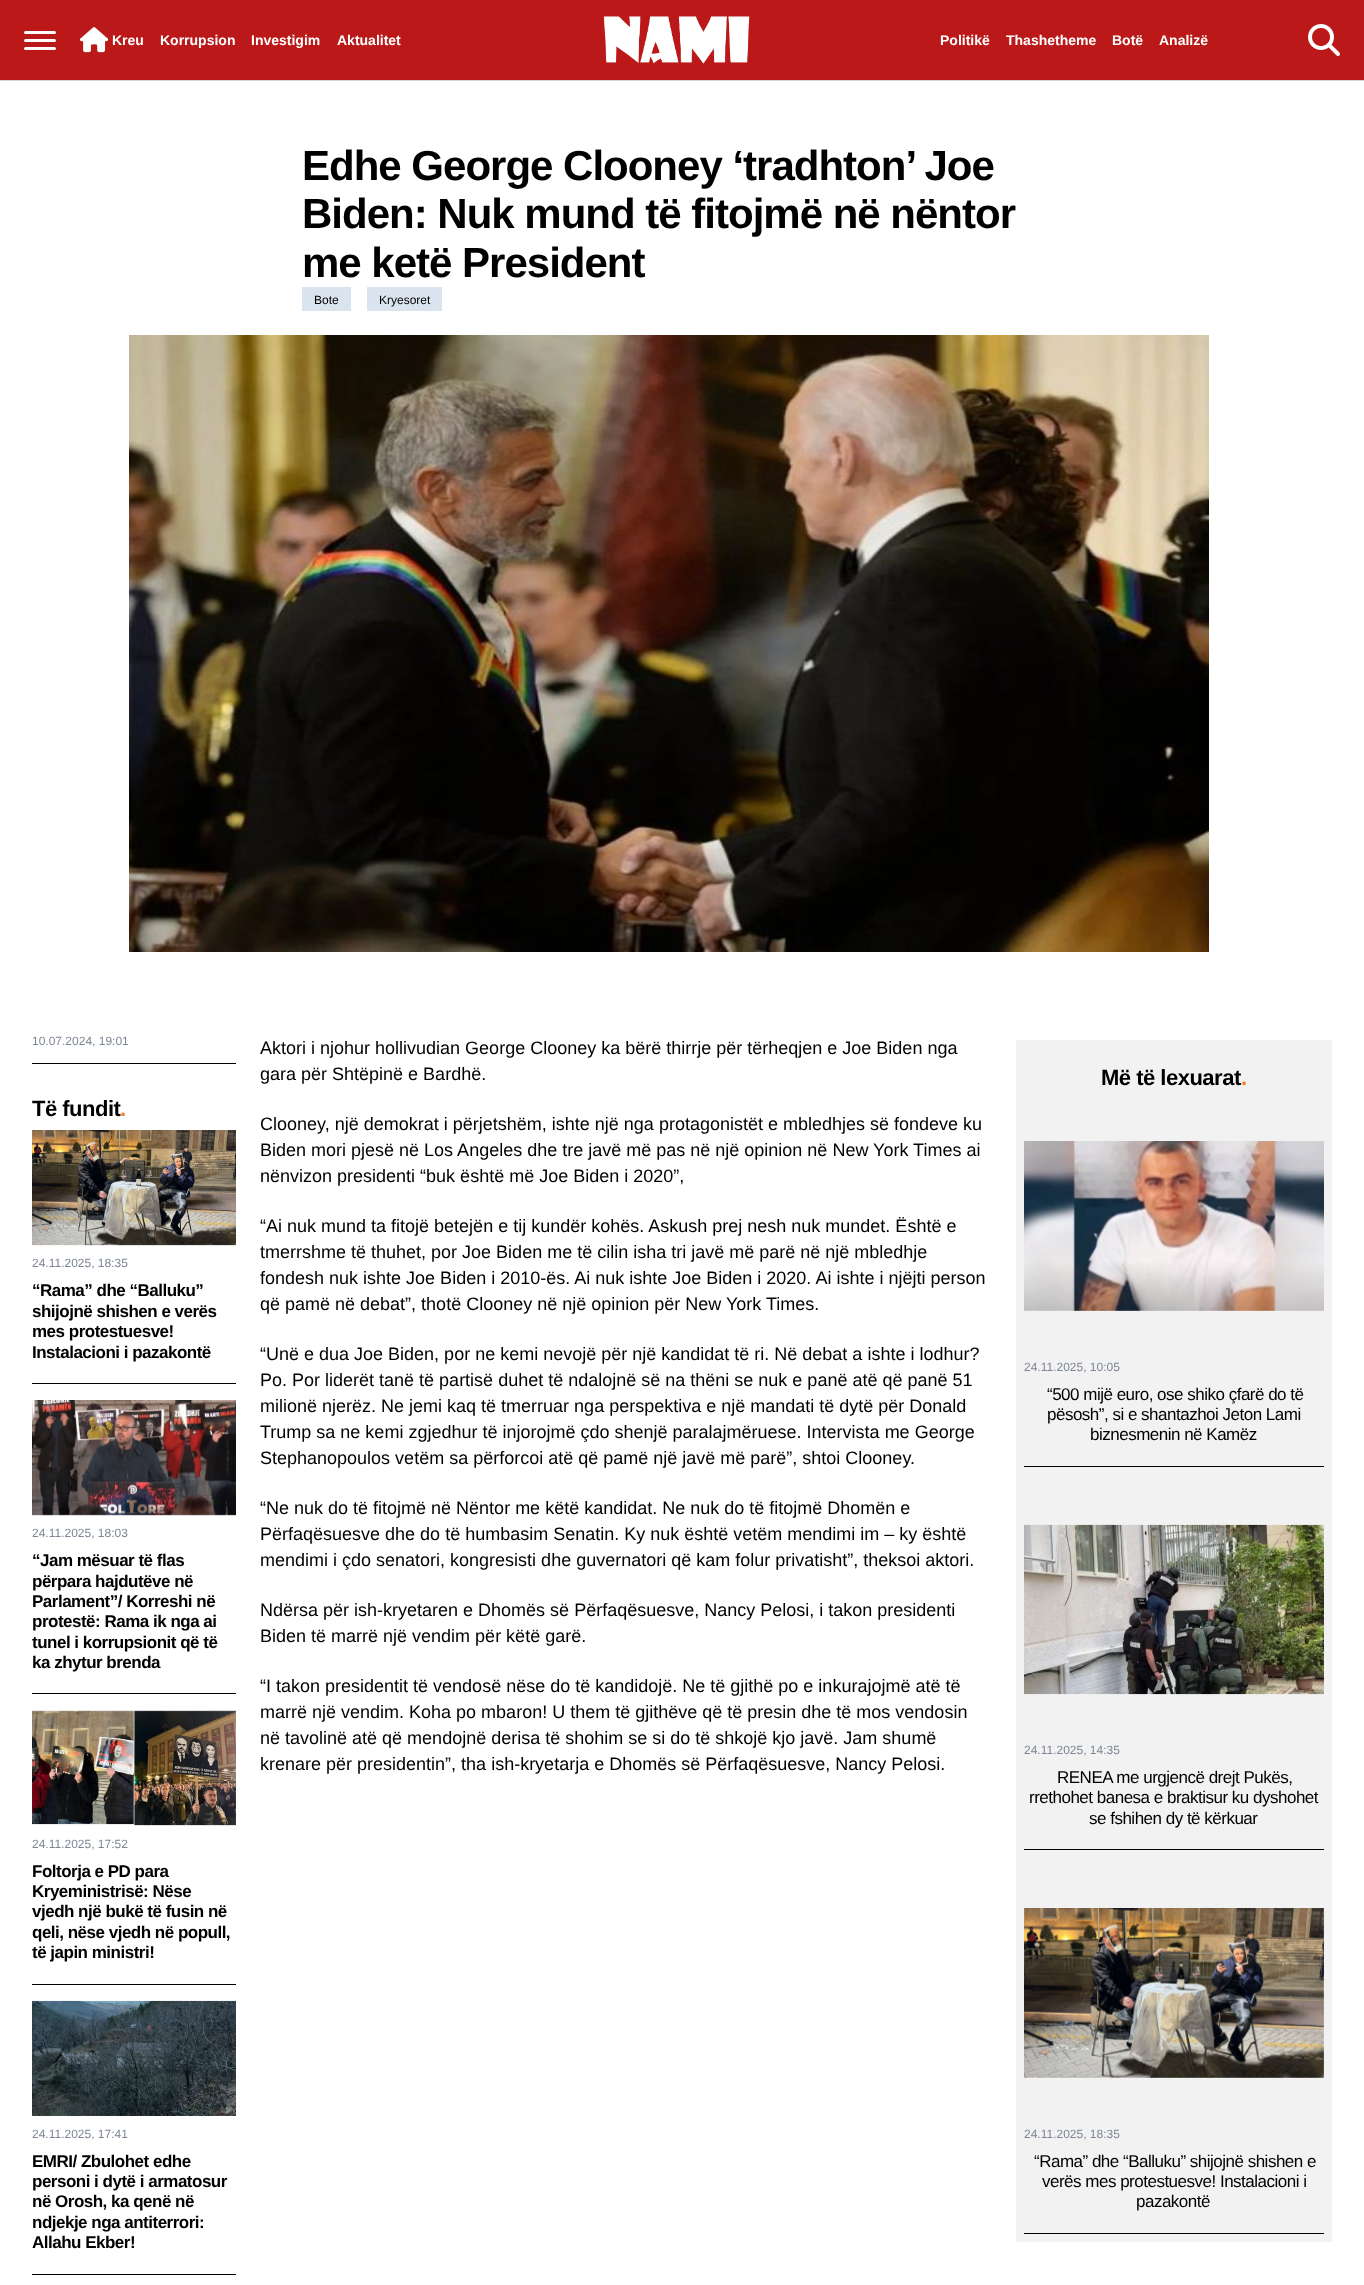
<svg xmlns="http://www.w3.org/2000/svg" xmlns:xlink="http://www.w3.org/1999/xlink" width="1364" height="2285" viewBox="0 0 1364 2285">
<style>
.cls-1{font:bold 14px Liberation Sans;fill:#ffffff}
.cls-2{font:bold 42px Liberation Sans;letter-spacing:-1px;fill:#000000}
.cls-3{font:12px Liberation Sans;fill:#000000}
.cls-4{font:12px Liberation Sans;fill:#7d8693}
.cls-5{font:bold 22px Liberation Sans;letter-spacing:-0.5px;fill:#000000}
.cls-6{font:bold 22px Liberation Sans;letter-spacing:-0.5px;fill:#f47b23}
.cls-7{font:bold 17px Liberation Sans;letter-spacing:-0.5px;fill:#000000}
.cls-8{font:18px Liberation Sans;fill:#000000}
.cls-9{font:17px Liberation Sans;letter-spacing:-0.5px;fill:#000000}
</style>
<rect width="100%" height="100%" fill="#ffffff"/>
<rect fill="none" stroke="#d3d6da" x="-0.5" y="-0.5" width="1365" height="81"/>
<rect fill="#bb1919" x="0" y="0" width="1364" height="80"/>
<rect fill="#ffffff" x="24" y="39" width="32" height="3" rx="1.5"/>
<rect fill="#ffffff" x="24" y="31" width="32" height="3" rx="1.5"/>
<rect fill="#ffffff" x="24" y="47" width="32" height="3" rx="1.5"/>
<image xlink:href="image0.png" x="80" y="27" width="29" height="26"/>
<image xlink:href="image1.png" x="603" y="16" width="147" height="48"/>
<image xlink:href="image2.png" x="1308" y="24" width="32" height="32"/>
<rect fill="#d9e4ee" x="302" y="287" width="49" height="24"/>
<rect fill="#d9e4ee" x="367" y="287" width="75" height="24"/>
<image xlink:href="image3.png" x="129" y="335" width="1080" height="617"/>
<rect fill="#000000" x="32" y="1063" width="204" height="1"/>
<rect fill="#000000" x="32" y="1383" width="204" height="1"/>
<image xlink:href="image4.png" x="32" y="1130" width="204" height="116"/>
<rect fill="#000000" x="32" y="1693" width="204" height="1"/>
<image xlink:href="image5.png" x="32" y="1400" width="204" height="116"/>
<rect fill="#000000" x="32" y="1984" width="204" height="1"/>
<image xlink:href="image6.png" x="32" y="1710" width="204" height="116"/>
<rect fill="#000000" x="32" y="2274" width="204" height="1"/>
<image xlink:href="image7.png" x="32" y="2000" width="204" height="116"/>
<rect fill="#f2f2f2" x="1016" y="1040" width="316" height="1202"/>
<rect fill="#000000" x="1024" y="1466" width="300" height="1"/>
<image xlink:href="image8.png" x="1024" y="1141" width="300" height="170"/>
<rect fill="#000000" x="1024" y="1849" width="300" height="1"/>
<image xlink:href="image9.png" x="1024" y="1524" width="300" height="171"/>
<rect fill="#000000" x="1024" y="2233" width="300" height="1"/>
<image xlink:href="image10.png" x="1024" y="1908" width="300" height="170"/>
<text class="cls-1" x="112" y="45">Kreu</text>
<text class="cls-1" x="160" y="45">Korrupsion</text>
<text class="cls-1" x="251" y="45">Investigim</text>
<text class="cls-1" x="337" y="45">Aktualitet</text>
<text class="cls-1" x="940" y="45">Politikë</text>
<text class="cls-1" x="1006" y="45">Thashetheme</text>
<text class="cls-1" x="1112" y="45">Botë</text>
<text class="cls-1" x="1159" y="45">Analizë</text>
<text class="cls-2"><tspan x="302" y="180">Edhe George Clooney ‘tradhton’ Joe</tspan><tspan x="302" y="228">Biden: Nuk mund të fitojmë në nëntor</tspan><tspan x="302" y="277">me ketë President</tspan></text>
<text class="cls-3" x="314" y="304">Bote</text>
<text class="cls-3" x="379" y="304">Kryesoret</text>
<text class="cls-4" x="32" y="1045">10.07.2024, 19:01</text>
<text class="cls-5" x="32" y="1116">Të fundit</text>
<text class="cls-6" x="120" y="1116">.</text>
<text class="cls-4" x="32" y="1267">24.11.2025, 18:35</text>
<text class="cls-7"><tspan x="32" y="1296">“Rama” dhe “Balluku”</tspan><tspan x="32" y="1317">shijojnë shishen e verës</tspan><tspan x="32" y="1337">mes protestuesve!</tspan><tspan x="32" y="1358">Instalacioni i pazakontë</tspan></text>
<text class="cls-4" x="32" y="1537">24.11.2025, 18:03</text>
<text class="cls-7"><tspan x="32" y="1566">“Jam mësuar të flas</tspan><tspan x="32" y="1587">përpara hajdutëve në</tspan><tspan x="32" y="1607">Parlament”/ Korreshi në</tspan><tspan x="32" y="1627">protestë: Rama ik nga ai</tspan><tspan x="32" y="1648">tunel i korrupsionit që të</tspan><tspan x="32" y="1668">ka zhytur brenda</tspan></text>
<text class="cls-4" x="32" y="1848">24.11.2025, 17:52</text>
<text class="cls-7"><tspan x="32" y="1877">Foltorja e PD para</tspan><tspan x="32" y="1897">Kryeministrisë: Nëse</tspan><tspan x="32" y="1917">vjedh një bukë të fusin në</tspan><tspan x="32" y="1938">qeli, nëse vjedh në popull,</tspan><tspan x="32" y="1958">të japin ministri!</tspan></text>
<text class="cls-4" x="32" y="2138">24.11.2025, 17:41</text>
<text class="cls-7"><tspan x="32" y="2167">EMRI/ Zbulohet edhe</tspan><tspan x="32" y="2187">personi i dytë i armatosur</tspan><tspan x="32" y="2207">në Orosh, ka qenë në</tspan><tspan x="32" y="2228">ndjekje nga antiterrori:</tspan><tspan x="32" y="2248">Allahu Ekber!</tspan></text>
<text class="cls-8"><tspan x="260" y="1054">Aktori i njohur hollivudian George Clooney ka bërë thirrje për tërheqjen e Joe Biden nga</tspan><tspan x="260" y="1080">gara për Shtëpinë e Bardhë.</tspan></text>
<text class="cls-8"><tspan x="260" y="1130">Clooney, një demokrat i përjetshëm, ishte një nga protagonistët e mbledhjes së fondeve ku</tspan><tspan x="260" y="1156">Biden mori pjesë në Los Angeles dhe tre javë më pas në një opinion në New York Times ai</tspan><tspan x="260" y="1182">nënvizon presidenti “buk është më Joe Biden i 2020”,</tspan></text>
<text class="cls-8"><tspan x="260" y="1232">“Ai nuk mund ta fitojë betejën e tij kundër kohës. Askush prej nesh nuk mundet. Është e</tspan><tspan x="260" y="1258">tmerrshme të thuhet, por Joe Biden me të cilin isha tri javë më parë në një mbledhje</tspan><tspan x="260" y="1284">fondesh nuk ishte Joe Biden i 2010-ës. Ai nuk ishte Joe Biden i 2020. Ai ishte i njëjti person</tspan><tspan x="260" y="1310">që pamë në debat”, thotë Clooney në një opinion për New York Times.</tspan></text>
<text class="cls-8"><tspan x="260" y="1360">“Unë e dua Joe Biden, por ne kemi nevojë për një kandidat të ri. Në debat a ishte i lodhur?</tspan><tspan x="260" y="1386">Po. Por liderët tanë të partisë duhet të ndalojnë së na thëni se nuk e panë atë që panë 51</tspan><tspan x="260" y="1412">milionë njerëz. Ne jemi kaq të tmerruar nga perspektiva e një mandati të dytë për Donald</tspan><tspan x="260" y="1438">Trump sa ne kemi zgjedhur të injorojmë çdo shenjë paralajmëruese. Intervista me George</tspan><tspan x="260" y="1464">Stephanopoulos vetëm sa përforcoi atë që pamë një javë më parë”, shtoi Clooney.</tspan></text>
<text class="cls-8"><tspan x="260" y="1514">“Ne nuk do të fitojmë në Nëntor me këtë kandidat. Ne nuk do të fitojmë Dhomën e</tspan><tspan x="260" y="1540">Përfaqësuesve dhe do të humbasim Senatin. Ky nuk është vetëm mendimi im – ky është</tspan><tspan x="260" y="1566">mendimi i çdo senatori, kongresisti dhe guvernatori që kam folur privatisht”, theksoi aktori.</tspan></text>
<text class="cls-8"><tspan x="260" y="1616">Ndërsa për ish-kryetaren e Dhomës së Përfaqësuesve, Nancy Pelosi, i takon presidenti</tspan><tspan x="260" y="1642">Biden të marrë një vendim për këtë garë.</tspan></text>
<text class="cls-8"><tspan x="260" y="1692">“I takon presidentit të vendosë nëse do të kandidojë. Ne të gjithë po e inkurajojmë atë të</tspan><tspan x="260" y="1718">marrë një vendim. Koha po mbaron! U them të gjithëve që të presin dhe të mos vendosin</tspan><tspan x="260" y="1744">në tavolinë atë që mendojnë derisa të shohim se si do të shkojë kjo javë. Jam shumë</tspan><tspan x="260" y="1770">krenare për presidentin”, tha ish-kryetarja e Dhomës së Përfaqësuesve, Nancy Pelosi.</tspan></text>
<text class="cls-5" x="1101" y="1085">Më të lexuarat</text>
<text class="cls-6" x="1241" y="1085">.</text>
<text class="cls-4" x="1024" y="1371">24.11.2025, 10:05</text>
<text class="cls-9"><tspan x="1047" y="1400">“500 mijë euro, ose shiko çfarë do të</tspan><tspan x="1047" y="1420">pësosh”, si e shantazhoi Jeton Lami</tspan></text>
<text class="cls-9" x="1090" y="1440">biznesmenin në Kamëz</text>
<text class="cls-4" x="1024" y="1754">24.11.2025, 14:35</text>
<text class="cls-9" x="1057" y="1783">RENEA me urgjencë drejt Pukës,</text>
<text class="cls-9" x="1029" y="1803">rrethohet banesa e braktisur ku dyshohet</text>
<text class="cls-9" x="1089" y="1824">se fshihen dy të kërkuar</text>
<text class="cls-4" x="1024" y="2138">24.11.2025, 18:35</text>
<text class="cls-9" x="1034" y="2167">“Rama” dhe “Balluku” shijojnë shishen e</text>
<text class="cls-9" x="1042" y="2187">verës mes protestuesve! Instalacioni i</text>
<text class="cls-9" x="1136" y="2207">pazakontë</text>
</svg>
